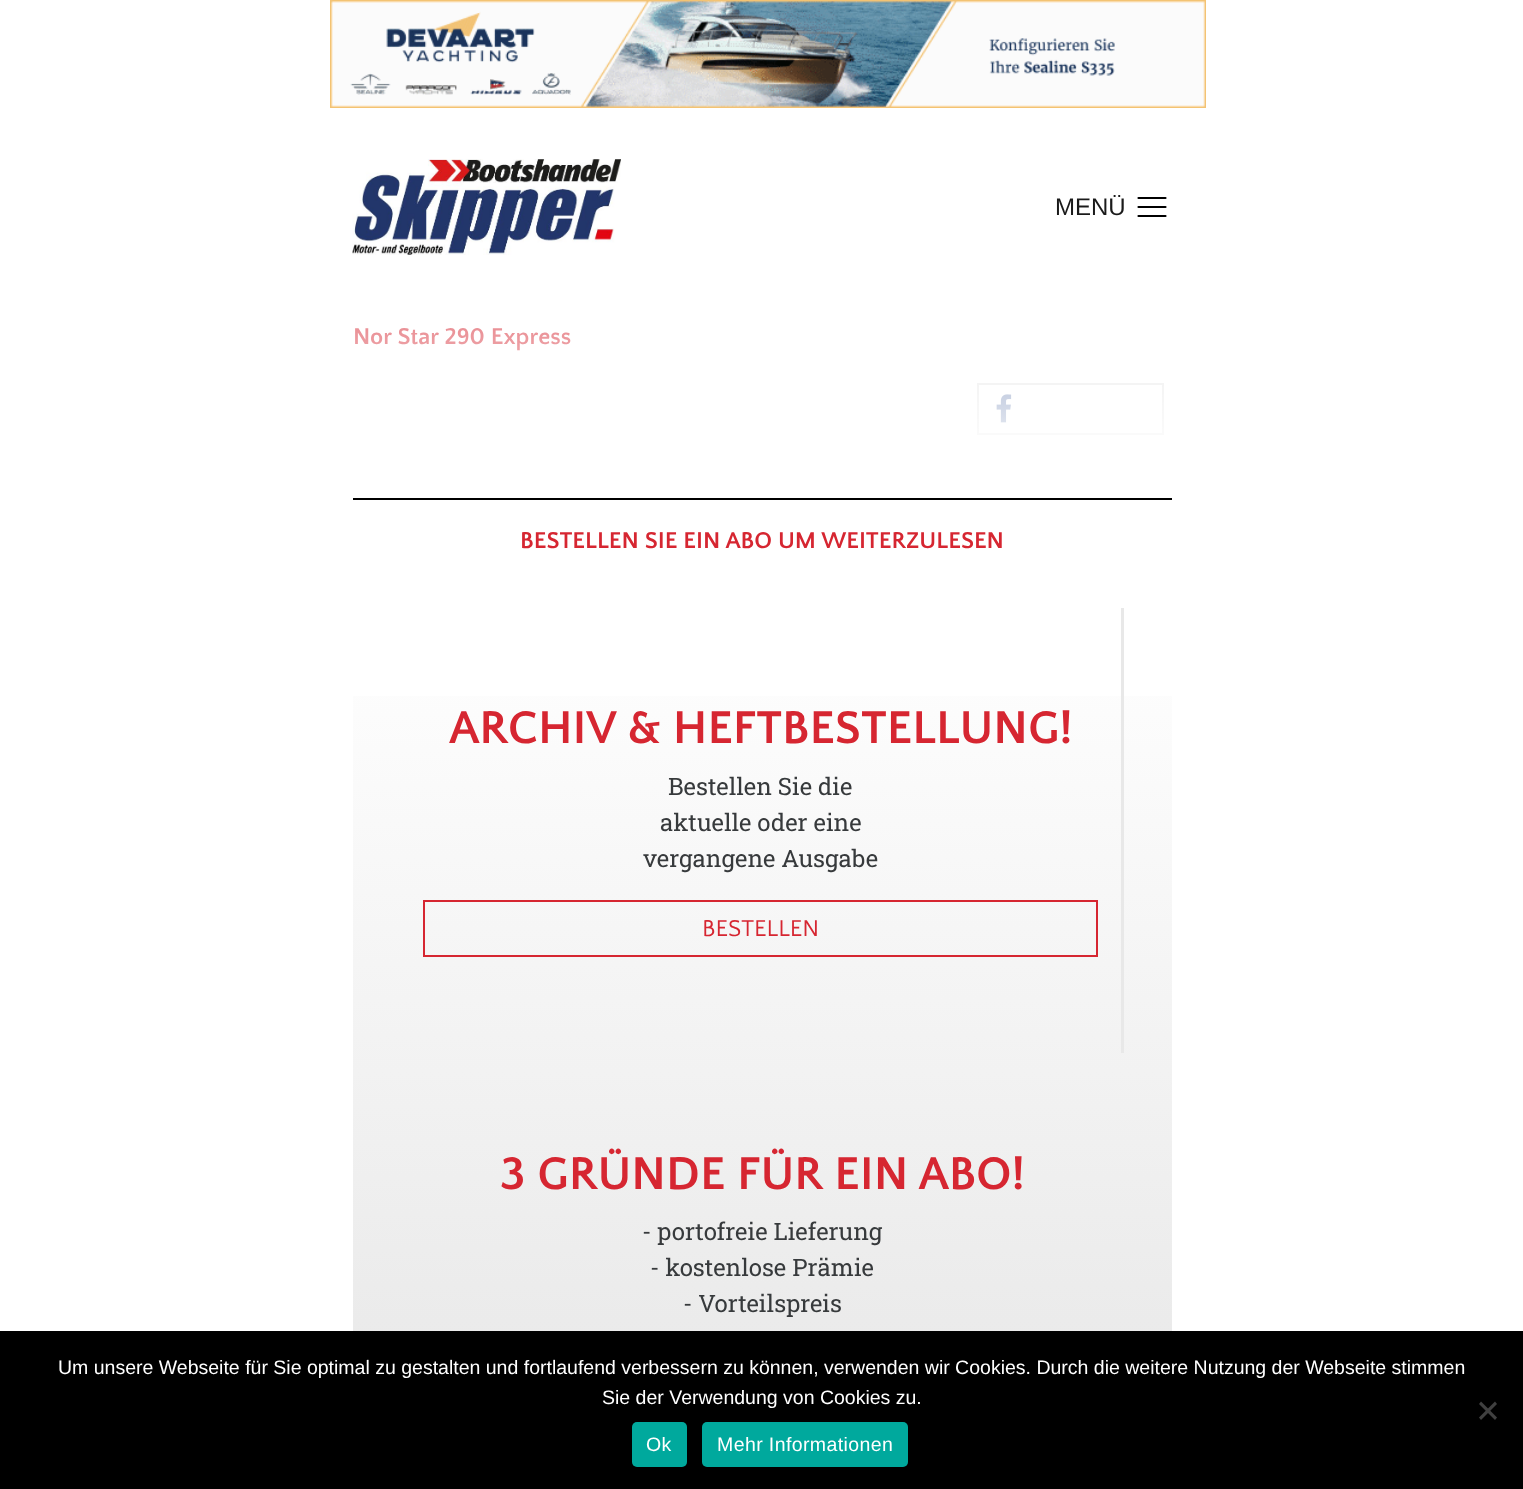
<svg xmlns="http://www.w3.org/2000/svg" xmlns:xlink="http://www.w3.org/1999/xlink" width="1523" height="1489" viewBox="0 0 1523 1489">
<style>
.cls-1{font:24px Liberation Sans;fill:#1a1a1a}
.cls-2{font:bold 24px Quattrocento Sans;fill:#d62631}
.cls-3{font:bold 48px Quattrocento Sans;fill:#d62631}
.cls-4{font:24px Roboto Slab;fill:#373a3c}
.cls-5{font:24px Quattrocento Sans;fill:#d62631}
.cls-6{font:19.5px Liberation Sans;fill:#ffffff}
.cls-7{font:19.5px Liberation Sans;letter-spacing:0.4px;fill:#ffffff}
</style>
<defs>
<linearGradient id="g1" gradientUnits="userSpaceOnUse" x1="762" y1="607" x2="762" y2="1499"><stop offset="0" stop-color="#ffffff"/><stop offset="1" stop-color="#e6e6e6"/></linearGradient>
<linearGradient id="g2" gradientUnits="userSpaceOnUse" x1="762" y1="186" x2="762" y2="474"><stop offset="0" stop-color="#ffffff" stop-opacity="0"/><stop offset="1" stop-color="#ffffff"/></linearGradient>
</defs>
<rect width="100%" height="100%" fill="#ffffff"/>
<image xlink:href="image0.png" x="330" y="0" width="876" height="108"/>
<image xlink:href="image1.png" x="352" y="159" width="269" height="96"/>
<path fill="none" stroke="#000000" stroke-width="2.2" stroke-linecap="round" d="M1138.5 198H1165.5M1138.5 207H1165.5M1138.5 216H1165.5"/>
<rect fill="none" stroke="#dddddd" stroke-width="2" x="978" y="384" width="185" height="50"/>
<image xlink:href="image2.png" x="996" y="394" width="16" height="29"/>
<rect fill="#000000" x="353" y="498" width="819" height="2"/>
<rect fill="url(#g1)" x="353" y="696" width="819" height="635"/>
<rect fill="#e8e8e8" x="1121" y="608" width="3" height="445"/>
<rect fill="none" stroke="#d62631" stroke-width="2" x="424" y="901" width="673" height="55"/>
<rect fill="#000000" x="0" y="1331" width="1523" height="158"/>
<path fill="#404040" d="M1495 1401.5L1497 1404L1481 1420L1479 1417.5Z"/>
<path fill="#404040" d="M1479 1404L1481 1401.5L1497 1417.5L1495 1420Z"/>
<rect fill="#00a99d" x="632" y="1422" width="55" height="45" rx="5"/>
<rect fill="#00a99d" x="702" y="1422" width="206" height="45" rx="5"/>
<text class="cls-1" x="1055" y="215">MENÜ</text>
<text class="cls-2" x="353" y="344">Nor Star 290 Express</text>
<rect fill="url(#g2)" x="354" y="328" width="810" height="107"/>
<text class="cls-2" x="520" y="548">BESTELLEN SIE EIN ABO UM WEITERZULESEN</text>
<text class="cls-3" x="449" y="743">ARCHIV &amp; HEFTBESTELLUNG!</text>
<text class="cls-4" x="668" y="795">Bestellen Sie die</text>
<text class="cls-4" x="660" y="831">aktuelle oder eine</text>
<text class="cls-4" x="643" y="867">vergangene Ausgabe</text>
<text class="cls-5" x="702" y="936">BESTELLEN</text>
<text class="cls-3" x="500" y="1189">3 GRÜNDE FÜR EIN ABO!</text>
<text class="cls-4" x="642" y="1240">- portofreie Lieferung</text>
<text class="cls-4" x="650" y="1276">- kostenlose Prämie</text>
<text class="cls-4" x="683" y="1312">- Vorteilspreis</text>
<text class="cls-6" x="58" y="1374">Um unsere Webseite für Sie optimal zu gestalten und fortlaufend verbessern zu können, verwenden wir Cookies. Durch die weitere Nutzung der Webseite stimmen</text>
<text class="cls-6" x="602" y="1404">Sie der Verwendung von Cookies zu.</text>
<text class="cls-7" x="646" y="1451">Ok</text>
<text class="cls-7" x="717" y="1451">Mehr Informationen</text>
</svg>
